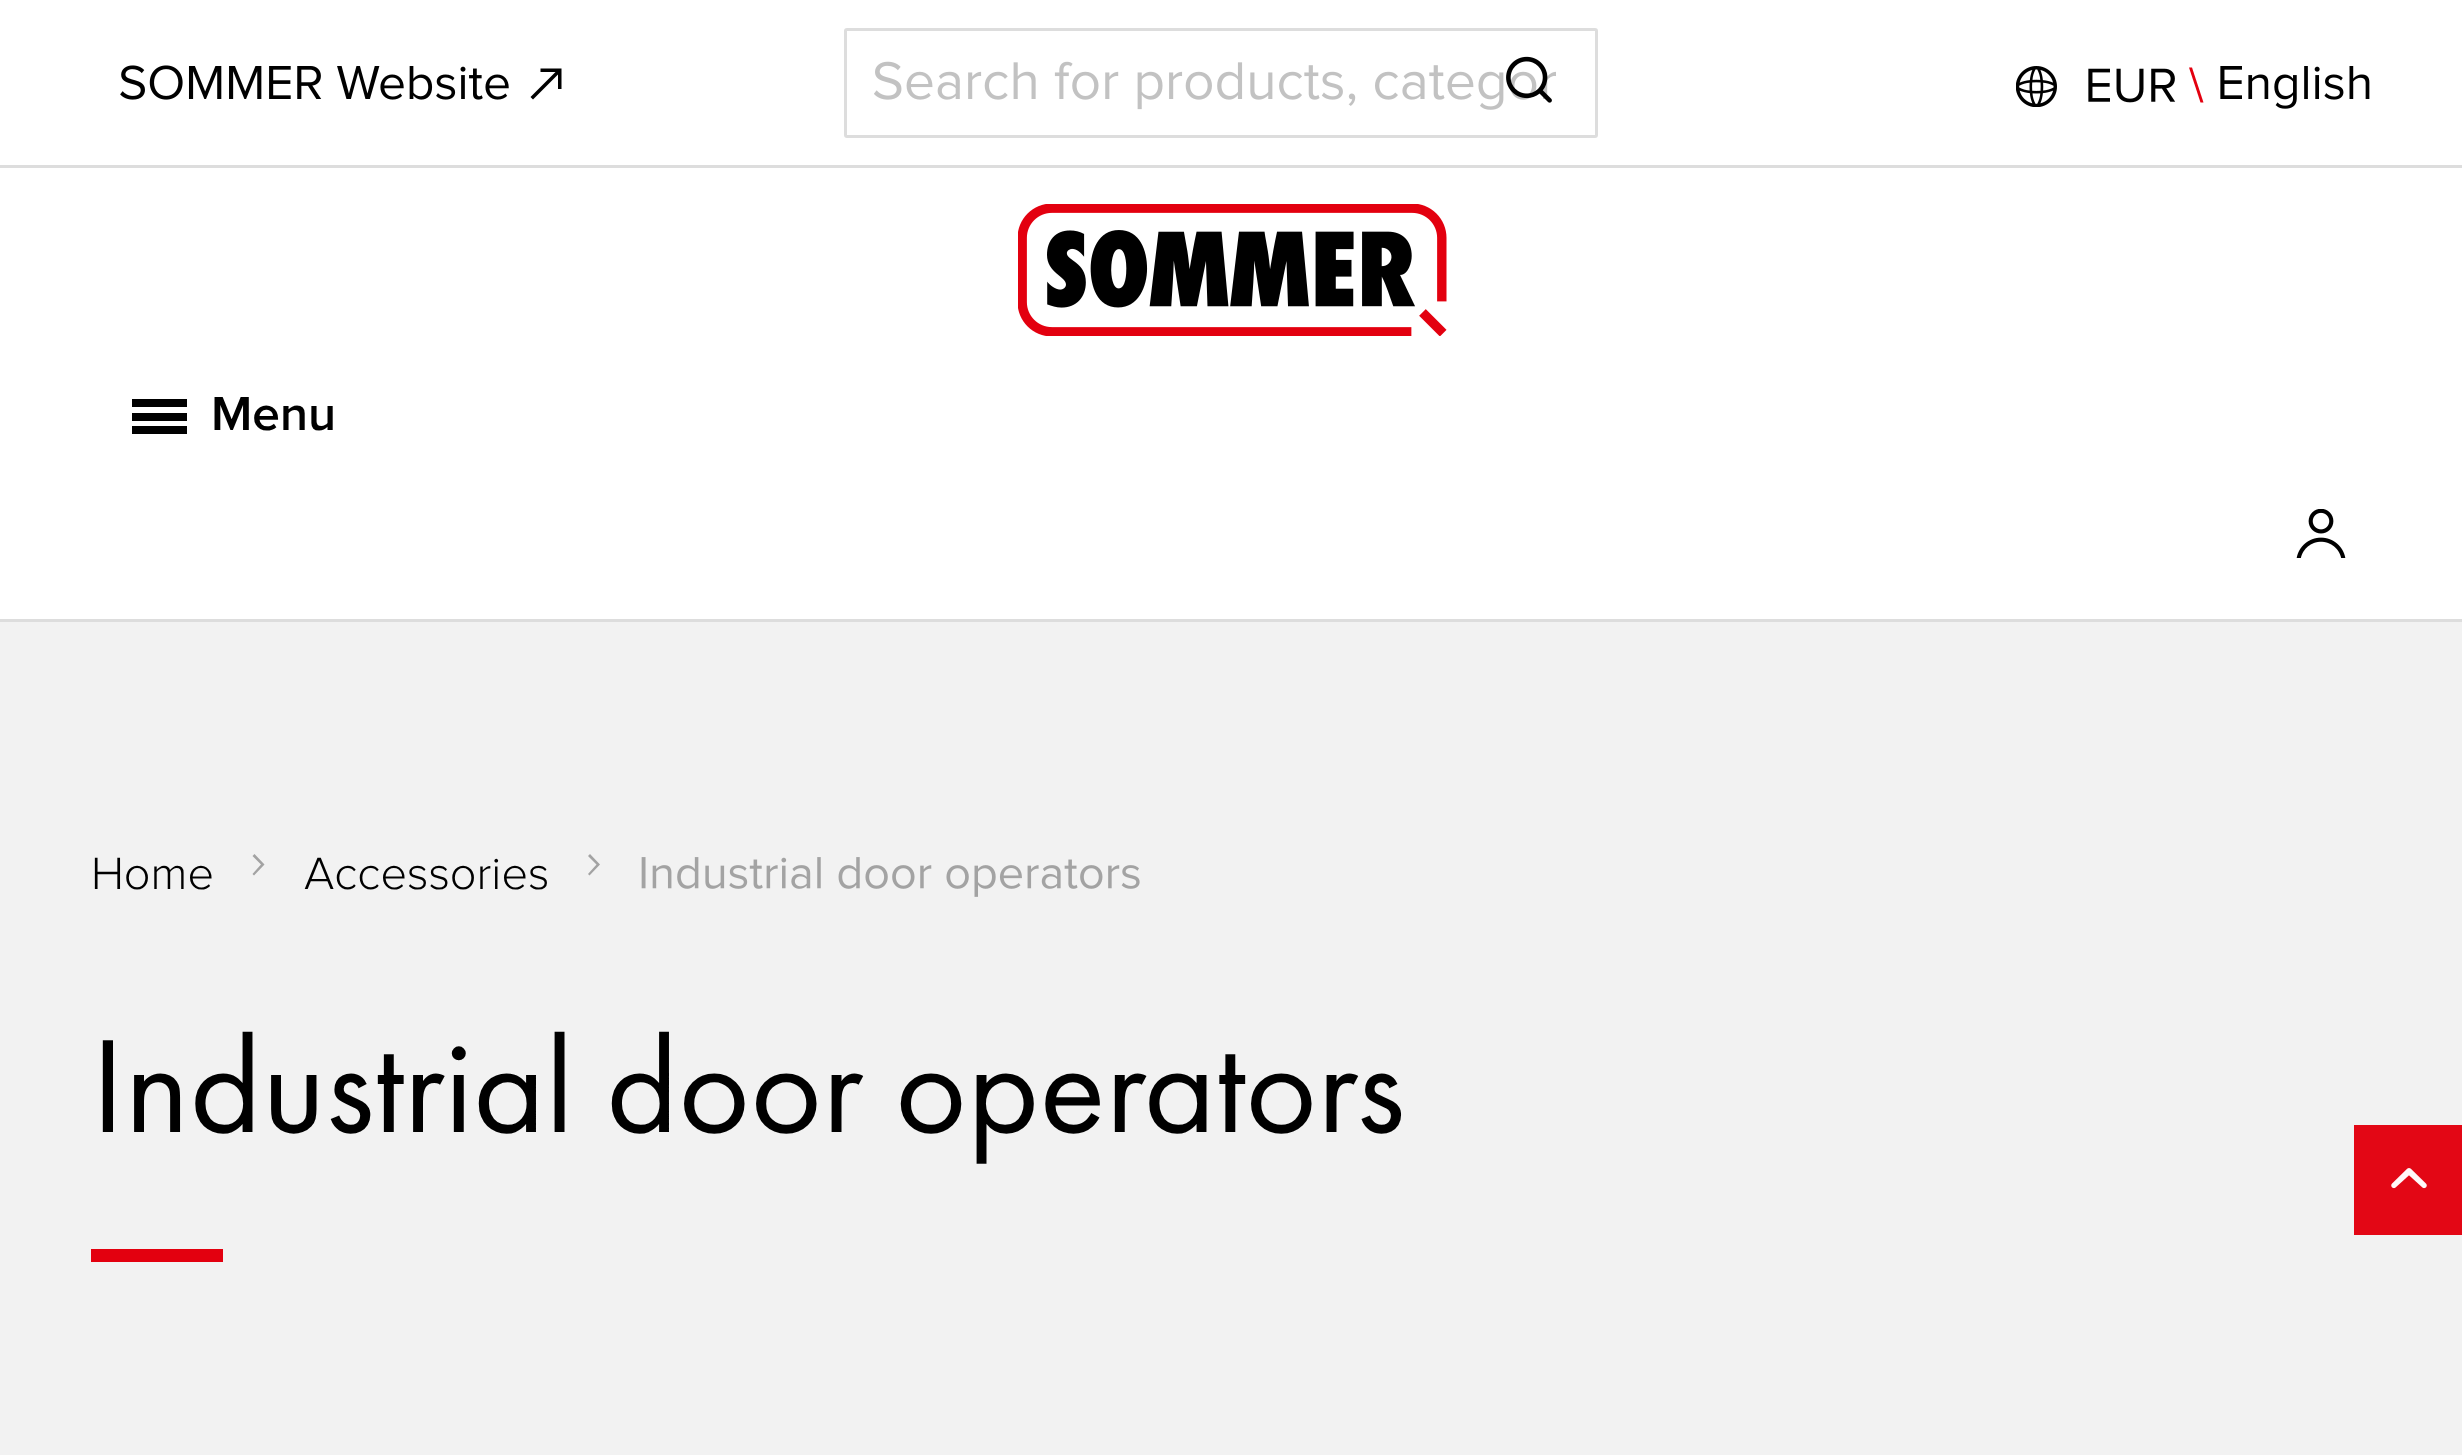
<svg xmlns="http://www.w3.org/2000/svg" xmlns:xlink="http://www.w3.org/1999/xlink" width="2462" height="1455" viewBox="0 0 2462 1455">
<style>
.cls-1{font:600 49.5px Proxima Nova;fill:#000000}
.cls-2{font:300 46.75px Proxima Nova;fill:#000000}
.cls-3{font:137.5px Futura PT;fill:#000000}
</style>
<defs>
<linearGradient id="g1" gradientUnits="userSpaceOnUse" x1="1314" y1="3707" x2="1150" y2="561"><stop offset="0" stop-color="#ffffff"/><stop offset="0.5" stop-color="#ffffff"/><stop offset="0.5" stop-color="#f2f2f2"/><stop offset="1" stop-color="#f2f2f2"/></linearGradient>
</defs>
<rect width="100%" height="100%" fill="#ffffff"/>
<image xlink:href="image0.png" x="120" y="65" width="389" height="35"/>
<path fill="#000000" d="M561.5 68.5V89H558V74.5L533 99.5L530.5 97L555.5 72H540.5V68.5Z"/>
<rect fill="none" stroke="#dddddd" stroke-width="3" x="845.5" y="29.5" width="751" height="107" rx="1.5"/>
<image xlink:href="image1.png" x="874" y="61" width="682" height="49"/>
<image xlink:href="image2.png" x="1506" y="56" width="46" height="47"/>
<image xlink:href="image3.png" x="2016" y="66" width="41" height="41"/>
<image xlink:href="image4.png" x="2088" y="68" width="88" height="35"/>
<path fill="#e3000f" d="M2200.5 102.5H2203.5L2192 67.5H2189Z"/>
<image xlink:href="image5.png" x="2220" y="66" width="150" height="43"/>
<rect fill="#dddddd" x="0" y="165" width="2462" height="3"/>
<rect fill="#dddddd" x="0" y="619" width="2462" height="3"/>
<image xlink:href="image6.png" x="1018" y="204" width="429" height="132"/>
<rect fill="#000000" x="132" y="399" width="55" height="8"/>
<rect fill="#000000" x="132" y="413" width="55" height="8"/>
<rect fill="#000000" x="132" y="426" width="55" height="8"/>
<image xlink:href="image7.png" x="2296" y="509" width="50" height="49"/>
<rect fill="url(#g1)" x="0" y="622" width="2462" height="833"/>
<path fill="#a3a3a3" d="M264.5 864.5L254.5 854L252.5 856L261 864.5L252.5 874L254 875.5Z"/>
<path fill="#a3a3a3" d="M600 864.5L590 854L588 856L596.5 864.5L588 874L589.5 875.5Z"/>
<image xlink:href="image8.png" x="641" y="857" width="499" height="40"/>
<rect fill="#e3000f" x="91" y="1249" width="132" height="13"/>
<rect fill="#e30715" x="2354" y="1125" width="108" height="110"/>
<image xlink:href="image9.png" x="2391" y="1168" width="36" height="21"/>
<text class="cls-1" x="211" y="430">Menu</text>
<text class="cls-2" x="91" y="889">Home</text>
<text class="cls-2" x="304" y="889">Accessories</text>
<text class="cls-3" x="91" y="1132">Industrial door operators</text>
</svg>
